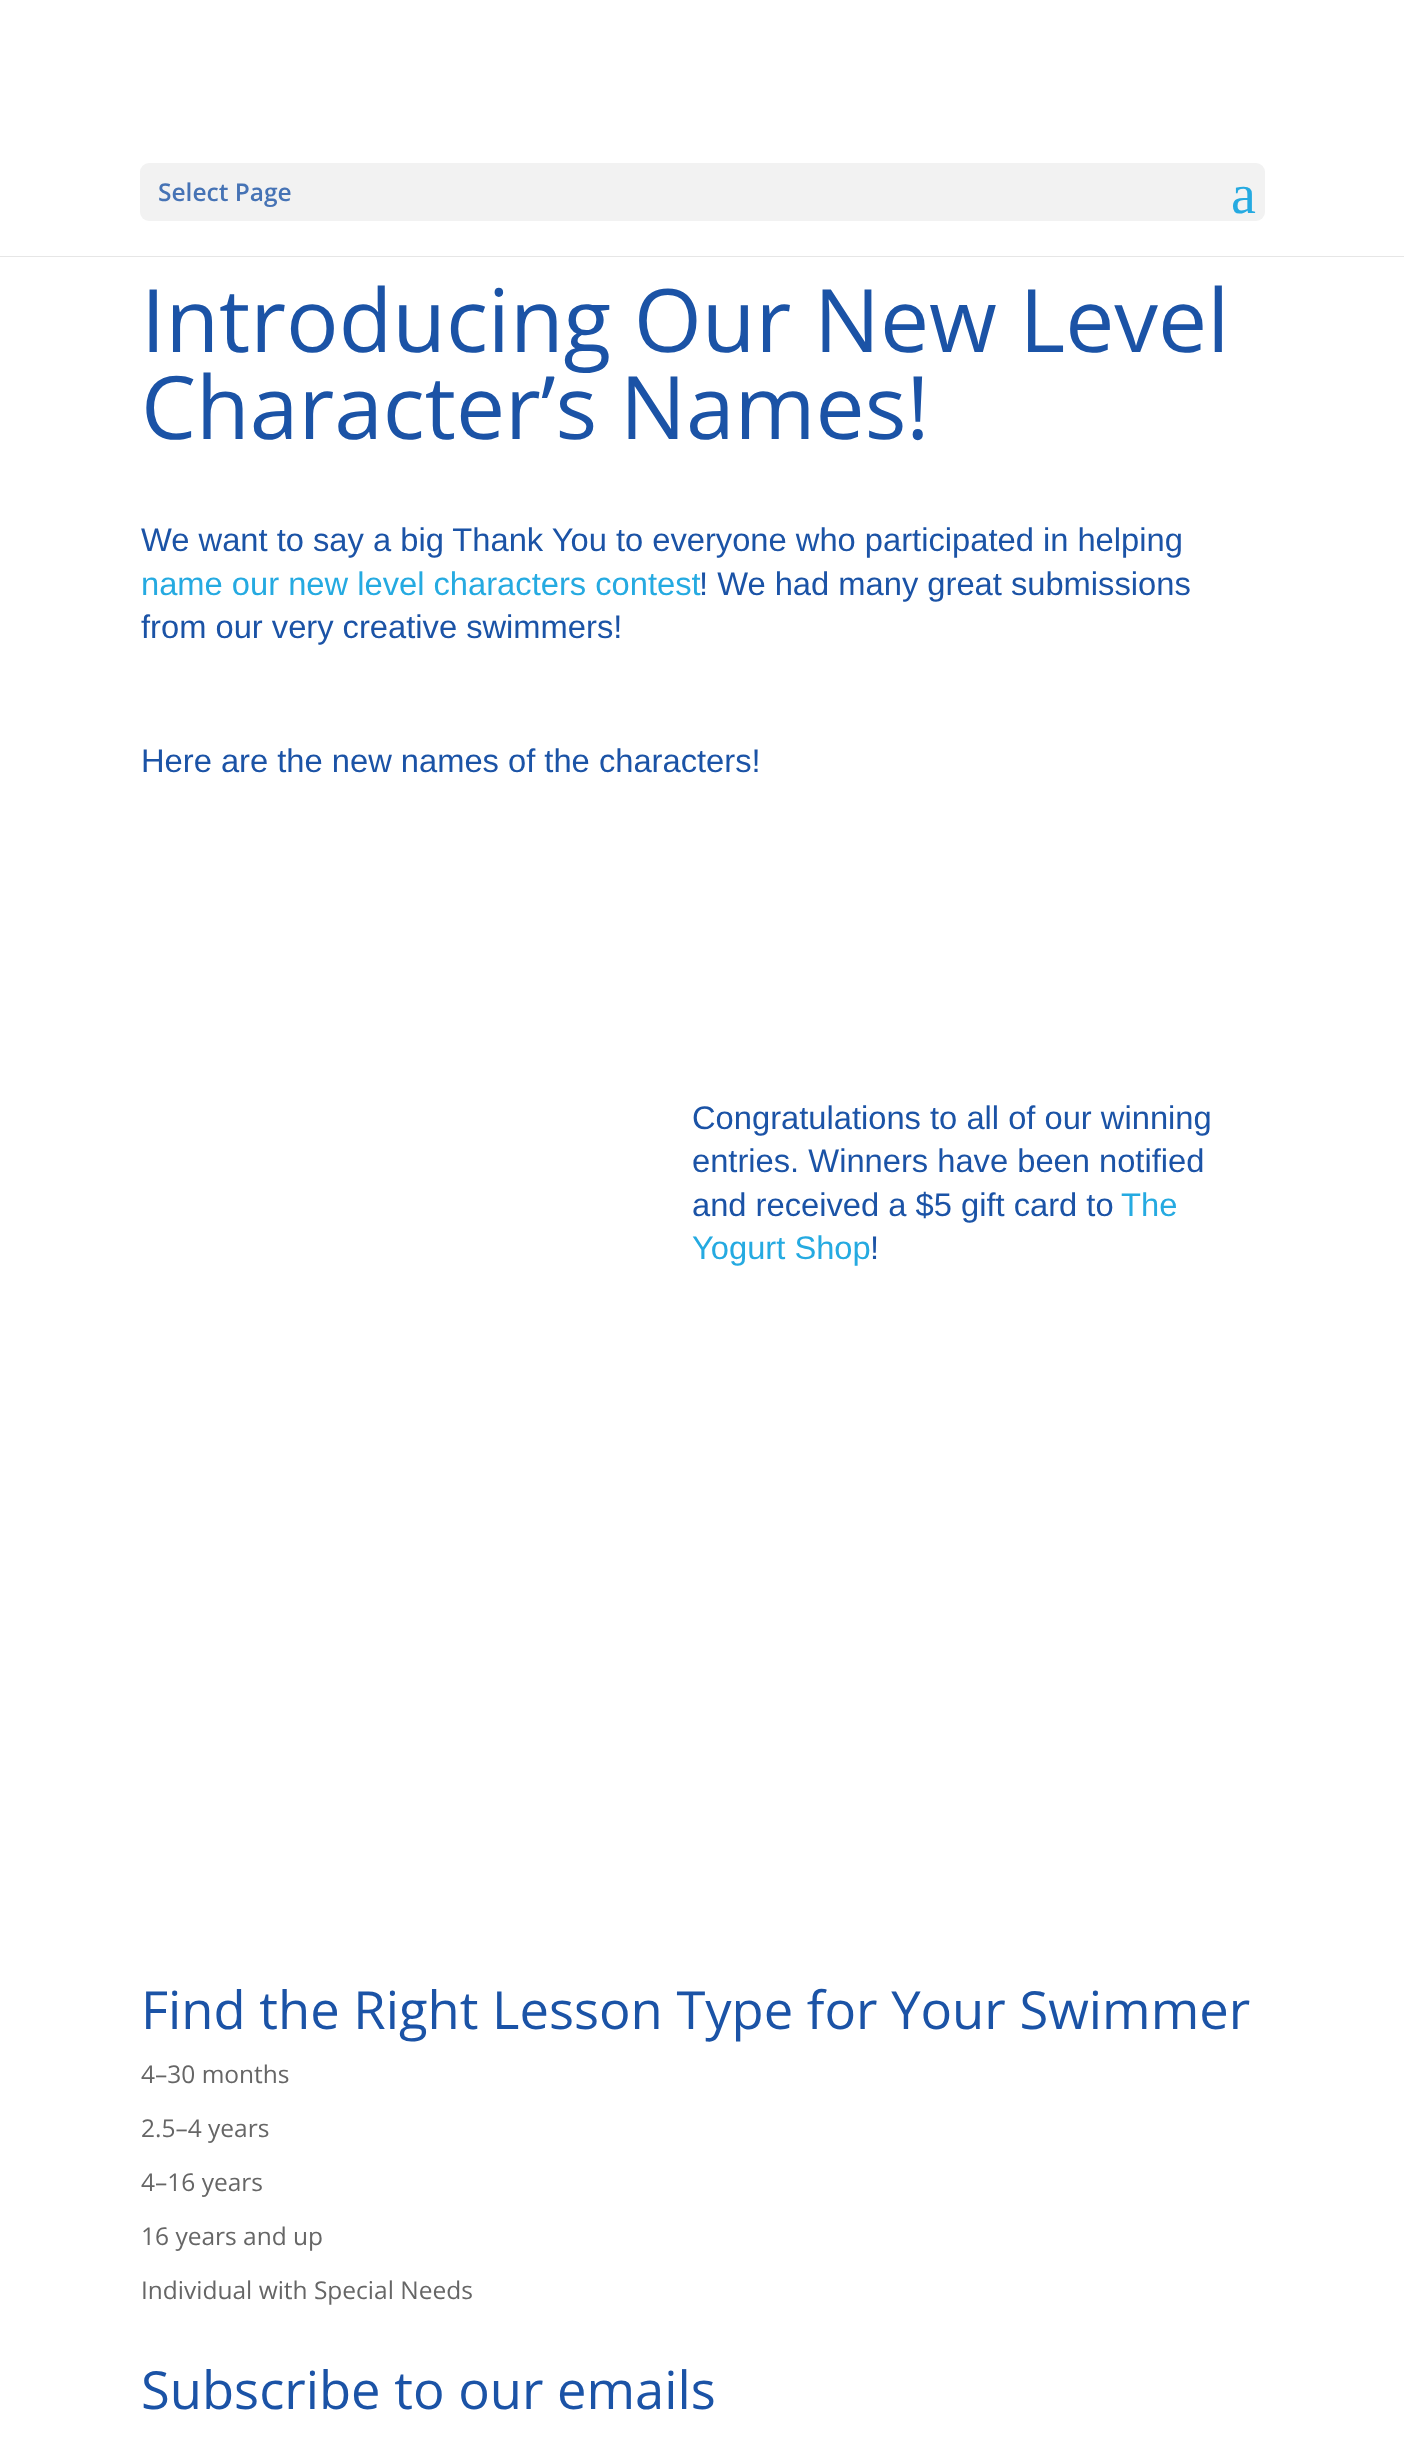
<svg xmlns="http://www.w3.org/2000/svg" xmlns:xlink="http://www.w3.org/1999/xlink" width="1404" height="2438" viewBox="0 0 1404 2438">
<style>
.cls-1{font:600 24.5px Open Sans;fill:#4673b5}
.cls-2{font:56px Liberation Serif;fill:#25aae1}
.cls-3{font:87.5px Open Sans;fill:#1b53a6}
.cls-4{font:32.7px Liberation Sans;fill:#1b53a6}
.cls-5{font:32.7px Liberation Sans;fill:#25aae1}
.cls-6{font:52.5px Open Sans;fill:#1b53a6}
.cls-7{font:24.5px Open Sans;fill:#666666}
</style>
<rect width="100%" height="100%" fill="#ffffff"/>
<rect fill="#e6e6e6" x="0" y="256" width="1404" height="1"/>
<rect fill="#f2f2f2" x="140" y="163" width="1125" height="58" rx="9"/>
<text class="cls-1" x="158" y="201">Select Page</text>
<text class="cls-2" x="1231" y="213">a</text>
<text class="cls-3"><tspan x="141" y="352">Introducing Our New Level</tspan><tspan x="141" y="439">Character’s Names!</tspan></text>
<text class="cls-4" x="141" y="551">We want to say a big Thank You to everyone who participated in helping</text>
<text class="cls-5" x="141" y="595">name our new level characters contest</text>
<text class="cls-4" x="699" y="595">! We had many great submissions</text>
<text class="cls-4" x="141" y="638">from our very creative swimmers!</text>
<text class="cls-4" x="141" y="772">Here are the new names of the characters!</text>
<text class="cls-4"><tspan x="692" y="1129">Congratulations to all of our winning</tspan><tspan x="692" y="1172">entries. Winners have been notified</tspan><tspan x="692" y="1216">and received a $5 gift card to</tspan></text>
<text class="cls-5" x="1121" y="1216">The</text>
<text class="cls-5" x="692" y="1259">Yogurt Shop</text>
<text class="cls-4" x="870" y="1259">!</text>
<text class="cls-6" x="141" y="2029">Find the Right Lesson Type for Your Swimmer</text>
<text class="cls-7" x="141" y="2083">4–30 months</text>
<text class="cls-7" x="141" y="2137">2.5–4 years</text>
<text class="cls-7" x="141" y="2191">4–16 years</text>
<text class="cls-7" x="141" y="2245">16 years and up</text>
<text class="cls-7" x="141" y="2299">Individual with Special Needs</text>
<text class="cls-6" x="141" y="2409">Subscribe to our emails</text>
</svg>
